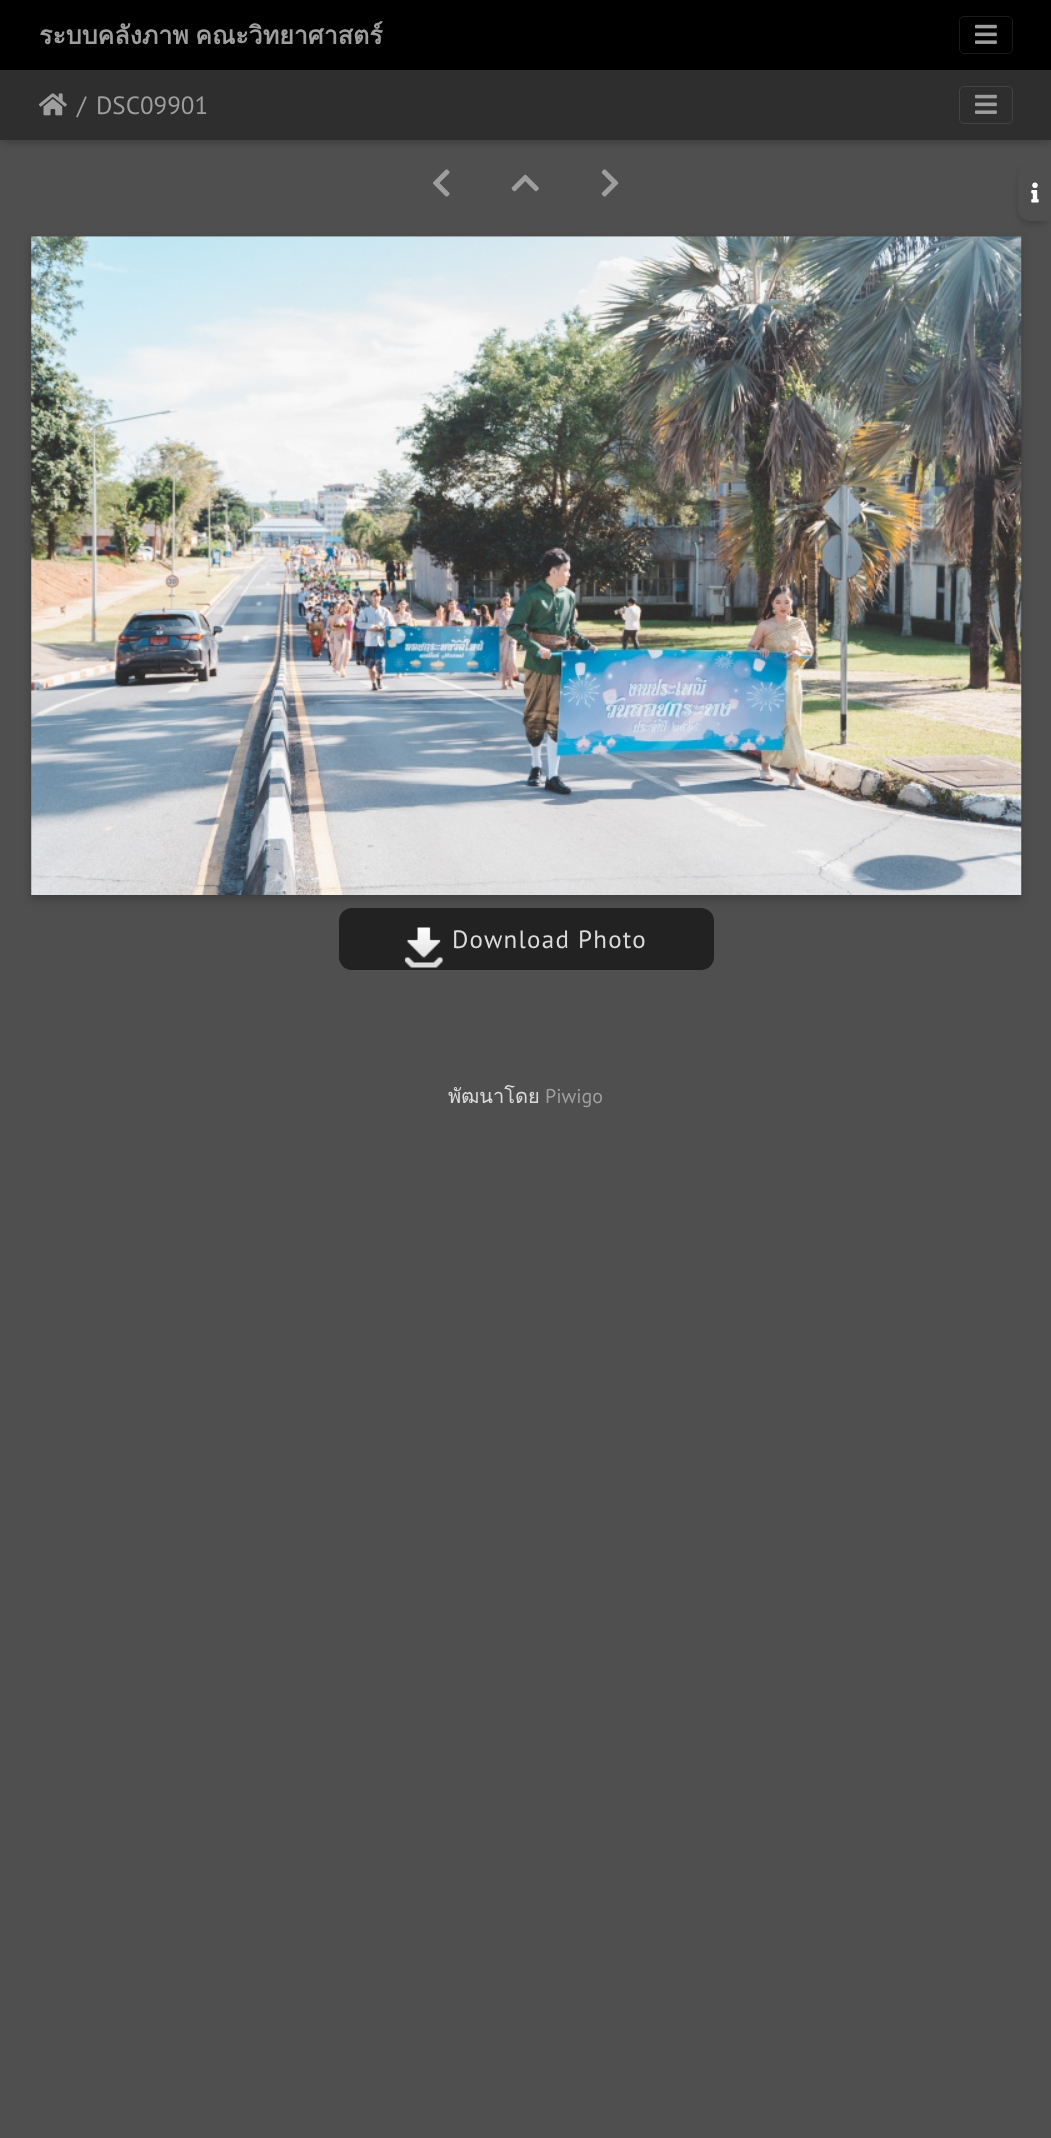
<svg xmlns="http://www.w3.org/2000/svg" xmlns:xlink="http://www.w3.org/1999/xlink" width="1051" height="2138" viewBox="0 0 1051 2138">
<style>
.cls-1{font:bold 25px Loma;fill:#9e9e9e}
.cls-2{font:25px PT Sans;fill:#9e9e9e}
.cls-3{font:25px PT Sans;letter-spacing:1.25px;fill:#dbdbdb}
.cls-4{font:20px Loma;fill:#dbdbdb}
.cls-5{font:20px PT Sans;fill:#9e9e9e}
</style>
<defs>
<clipPath id="clip1"><path d="M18 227H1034V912H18ZM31 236H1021V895H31Z" clip-rule="evenodd"/></clipPath>
</defs>
<rect width="100%" height="100%" fill="#4f4f4f"/>
<rect fill="#000000" fill-opacity="0.2" filter="blur(3px)" x="1" y="75" width="1049" height="68"/>
<rect fill="#000000" x="0" y="0" width="1051" height="70"/>
<rect fill="none" stroke="#1a1a1a" x="959.5" y="16.5" width="53" height="37" rx="4.5"/>
<image xlink:href="image0.png" x="975" y="24" width="22" height="20"/>
<rect fill="#2e2e2e" x="0" y="70" width="1051" height="70"/>
<image xlink:href="image1.png" x="39" y="93" width="28" height="23"/>
<rect fill="none" stroke="#434343" x="959.5" y="86.5" width="53" height="37" rx="4.5"/>
<image xlink:href="image2.png" x="975" y="94" width="22" height="20"/>
<image xlink:href="image3.png" x="433" y="169" width="17" height="28"/>
<image xlink:href="image4.png" x="511" y="174" width="28" height="18"/>
<image xlink:href="image5.png" x="601" y="169" width="18" height="28"/>
<rect fill="#000000" fill-opacity="0.2" filter="blur(3px)" x="1019" y="169" width="31" height="55" rx="11"/>
<path fill="#4f4f4f" d="M1031 164H1051V221H1031C1024 221 1018 215 1018 208V177C1018 170 1024 164 1031 164Z"/>
<path fill="#4f4f4f" fill-rule="evenodd" d="M1030 164H1051V221H1030C1023 221 1018 216 1018 209V176C1018 169 1023 164 1030 164ZM1030 165H1051V220H1030C1024 220 1019 215 1019 209V176C1019 170 1024 165 1030 165Z"/>
<image xlink:href="image6.png" x="1031" y="182" width="8" height="21"/>
<rect fill="#222222" x="339" y="908" width="375" height="62" rx="13"/>
<g clip-path="url(#clip1)">
<rect fill="#000000" fill-opacity="0.23" filter="blur(4px)" x="31" y="240" width="990" height="659"/>
</g>
<image xlink:href="image7.png" x="31" y="236" width="991" height="659"/>
<image xlink:href="image8.png" x="404" y="927" width="39" height="41"/>
<text class="cls-1" x="39" y="44" word-spacing="-2">ระบบคลังภาพ คณะวิทยาศาสตร์</text>
<text class="cls-2" x="77" y="114">/</text>
<text class="cls-2" x="96" y="114">DSC09901</text>
<text class="cls-3" x="452" y="948">Download Photo</text>
<text class="cls-4" x="448" y="1103">พัฒนาโดย</text>
<text class="cls-5" x="545" y="1103">Piwigo</text>
</svg>
